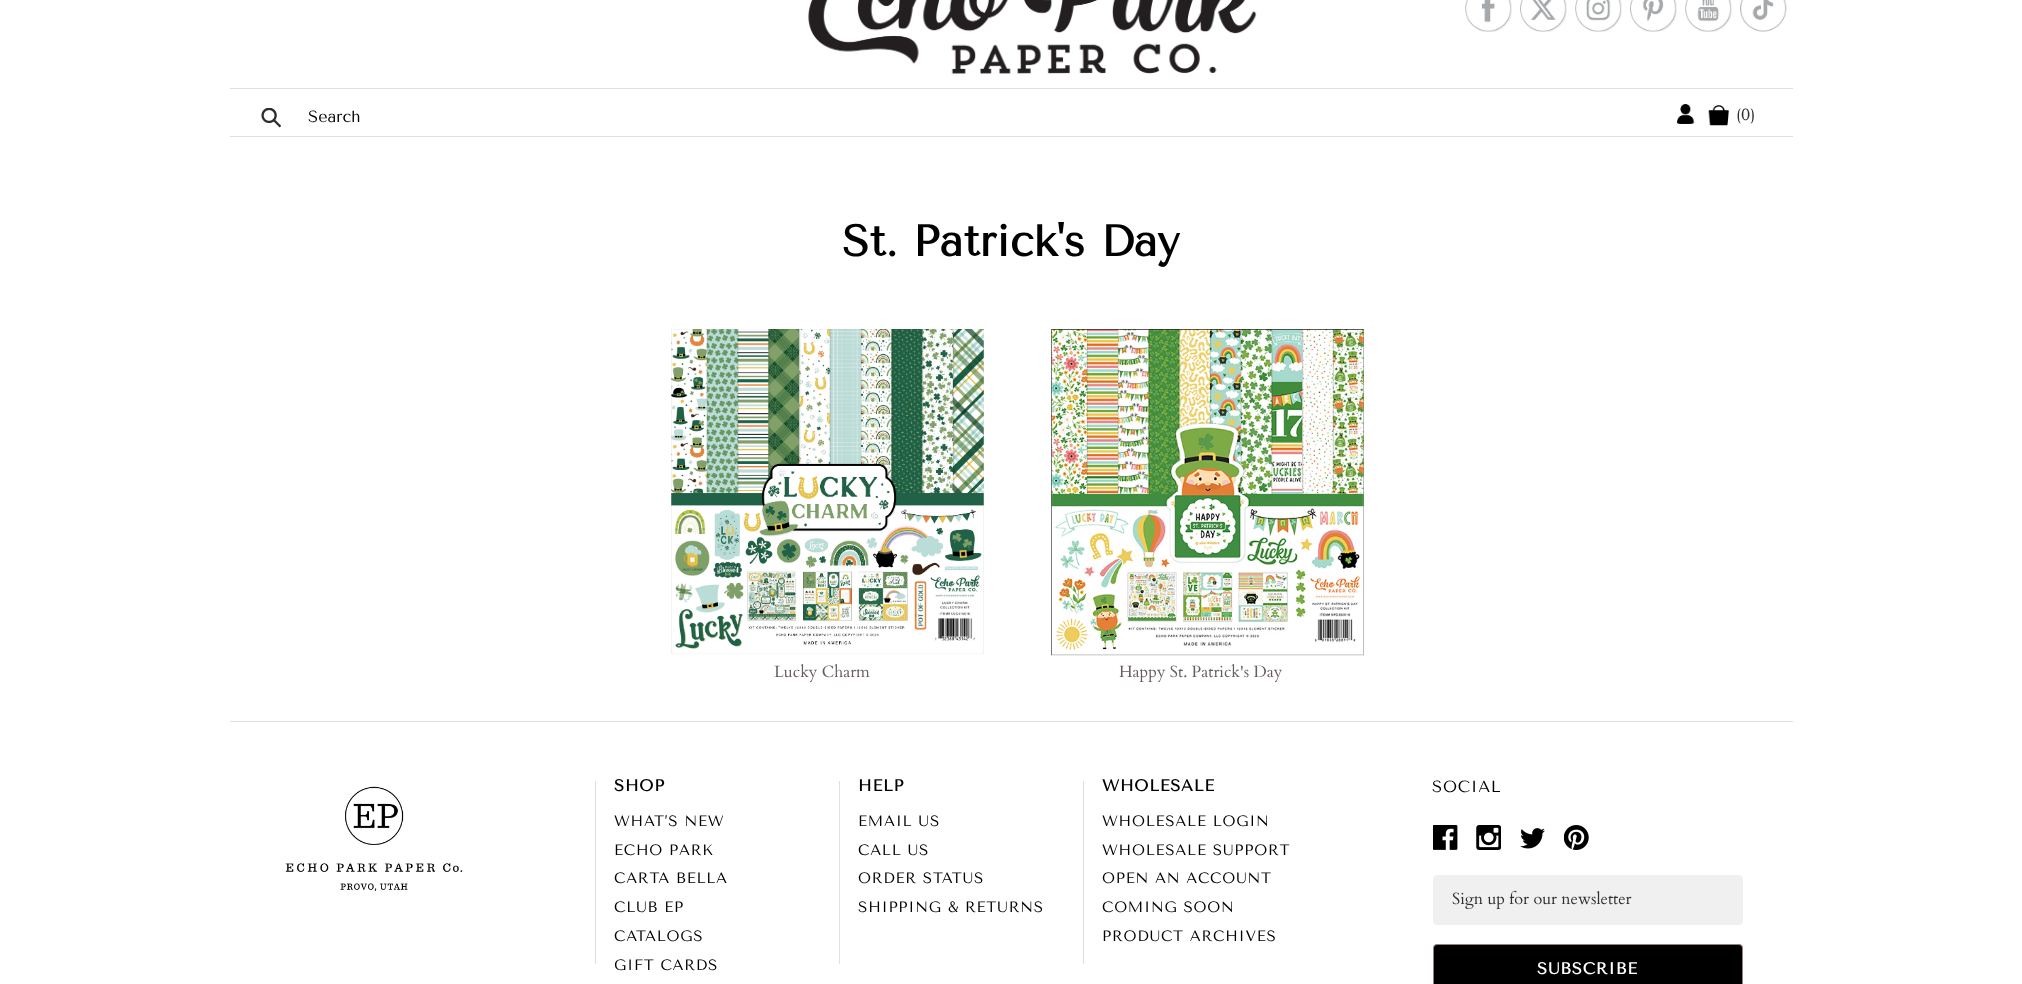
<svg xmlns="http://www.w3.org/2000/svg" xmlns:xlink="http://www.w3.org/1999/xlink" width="2022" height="984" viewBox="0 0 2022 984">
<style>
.cls-1{font:16.25px Tenor Sans;fill:#000000}
.cls-2{font:16.25px Tenor Sans;fill:#303030}
.cls-3{font:bold 43.75px Tenor Sans;fill:#000000}
.cls-4{font:16.25px Cardo;fill:#675d5d}
.cls-5{font:bold 16.25px Tenor Sans;letter-spacing:0.75px;fill:#000000}
.cls-6{font:15px Tenor Sans;letter-spacing:0.75px;fill:#000000}
.cls-7{font:16.25px Tenor Sans;letter-spacing:0.75px;fill:#000000}
.cls-8{font:16.25px Cardo;fill:#303030}
.cls-9{font:bold 16.25px Tenor Sans;letter-spacing:0.75px;fill:#ffffff}
</style>
<rect width="100%" height="100%" fill="#ffffff"/>
<image xlink:href="image0.png" x="808" y="0" width="449" height="74"/>
<image xlink:href="image1.png" x="1465" y="0" width="47" height="32"/>
<image xlink:href="image2.png" x="1520" y="0" width="47" height="32"/>
<image xlink:href="image3.png" x="1575" y="0" width="47" height="32"/>
<image xlink:href="image4.png" x="1630" y="0" width="47" height="32"/>
<image xlink:href="image5.png" x="1685" y="0" width="47" height="32"/>
<image xlink:href="image6.png" x="1740" y="0" width="47" height="32"/>
<rect fill="#dfdfdf" x="230" y="88" width="1563" height="1"/>
<rect fill="#dfdfdf" x="230" y="136" width="1563" height="1"/>
<image xlink:href="image7.png" x="261" y="108" width="20" height="20"/>
<image xlink:href="image8.png" x="1677" y="104" width="18" height="20"/>
<image xlink:href="image9.png" x="1708" y="105" width="21" height="21"/>
<image xlink:href="image10.png" x="671" y="329" width="313" height="325"/>
<image xlink:href="image11.png" x="1051" y="329" width="313" height="327"/>
<rect fill="#dfdfdf" x="230" y="721" width="1563" height="1"/>
<image xlink:href="image12.png" x="285" y="786" width="178" height="105"/>
<rect fill="#dfdfdf" x="595" y="781" width="1" height="183"/>
<rect fill="#dfdfdf" x="839" y="781" width="1" height="183"/>
<rect fill="#dfdfdf" x="1083" y="781" width="1" height="183"/>
<image xlink:href="image13.png" x="1433" y="825" width="25" height="25"/>
<image xlink:href="image14.png" x="1476" y="825" width="25" height="25"/>
<image xlink:href="image15.png" x="1520" y="828" width="25" height="21"/>
<image xlink:href="image16.png" x="1564" y="825" width="25" height="25"/>
<rect fill="#f0f0f0" stroke="#f0f0f0" x="1433.5" y="875.5" width="309" height="49" rx="3.5"/>
<rect fill="#000000" stroke="#947e7e" x="1433.5" y="944.5" width="309" height="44" rx="3.5"/>
<text class="cls-1" x="308" y="122">Search</text>
<text class="cls-2" x="1736" y="120">(0)</text>
<text class="cls-3" x="842" y="256">St. Patrick's Day</text>
<text class="cls-4" x="774" y="677">Lucky Charm</text>
<text class="cls-4" x="1119" y="677">Happy St. Patrick's Day</text>
<text class="cls-5" x="614" y="791">SHOP</text>
<text class="cls-6"><tspan x="614" y="826">WHAT’S NEW</tspan><tspan x="614" y="855">ECHO PARK</tspan><tspan x="614" y="883">CARTA BELLA</tspan><tspan x="614" y="912">CLUB EP</tspan><tspan x="614" y="941">CATALOGS</tspan><tspan x="614" y="970">GIFT CARDS</tspan></text>
<text class="cls-5" x="858" y="791">HELP</text>
<text class="cls-6"><tspan x="858" y="826">EMAIL US</tspan><tspan x="858" y="855">CALL US</tspan><tspan x="858" y="883">ORDER STATUS</tspan><tspan x="858" y="912">SHIPPING &amp; RETURNS</tspan></text>
<text class="cls-5" x="1102" y="791">WHOLESALE</text>
<text class="cls-6"><tspan x="1102" y="826">WHOLESALE LOGIN</tspan><tspan x="1102" y="855">WHOLESALE SUPPORT</tspan><tspan x="1102" y="883">OPEN AN ACCOUNT</tspan><tspan x="1102" y="912">COMING SOON</tspan><tspan x="1102" y="941">PRODUCT ARCHIVES</tspan></text>
<text class="cls-7" x="1432" y="792">SOCIAL</text>
<text class="cls-8" x="1452" y="904">Sign up for our newsletter</text>
<text class="cls-9" x="1537" y="974">SUBSCRIBE</text>
</svg>
